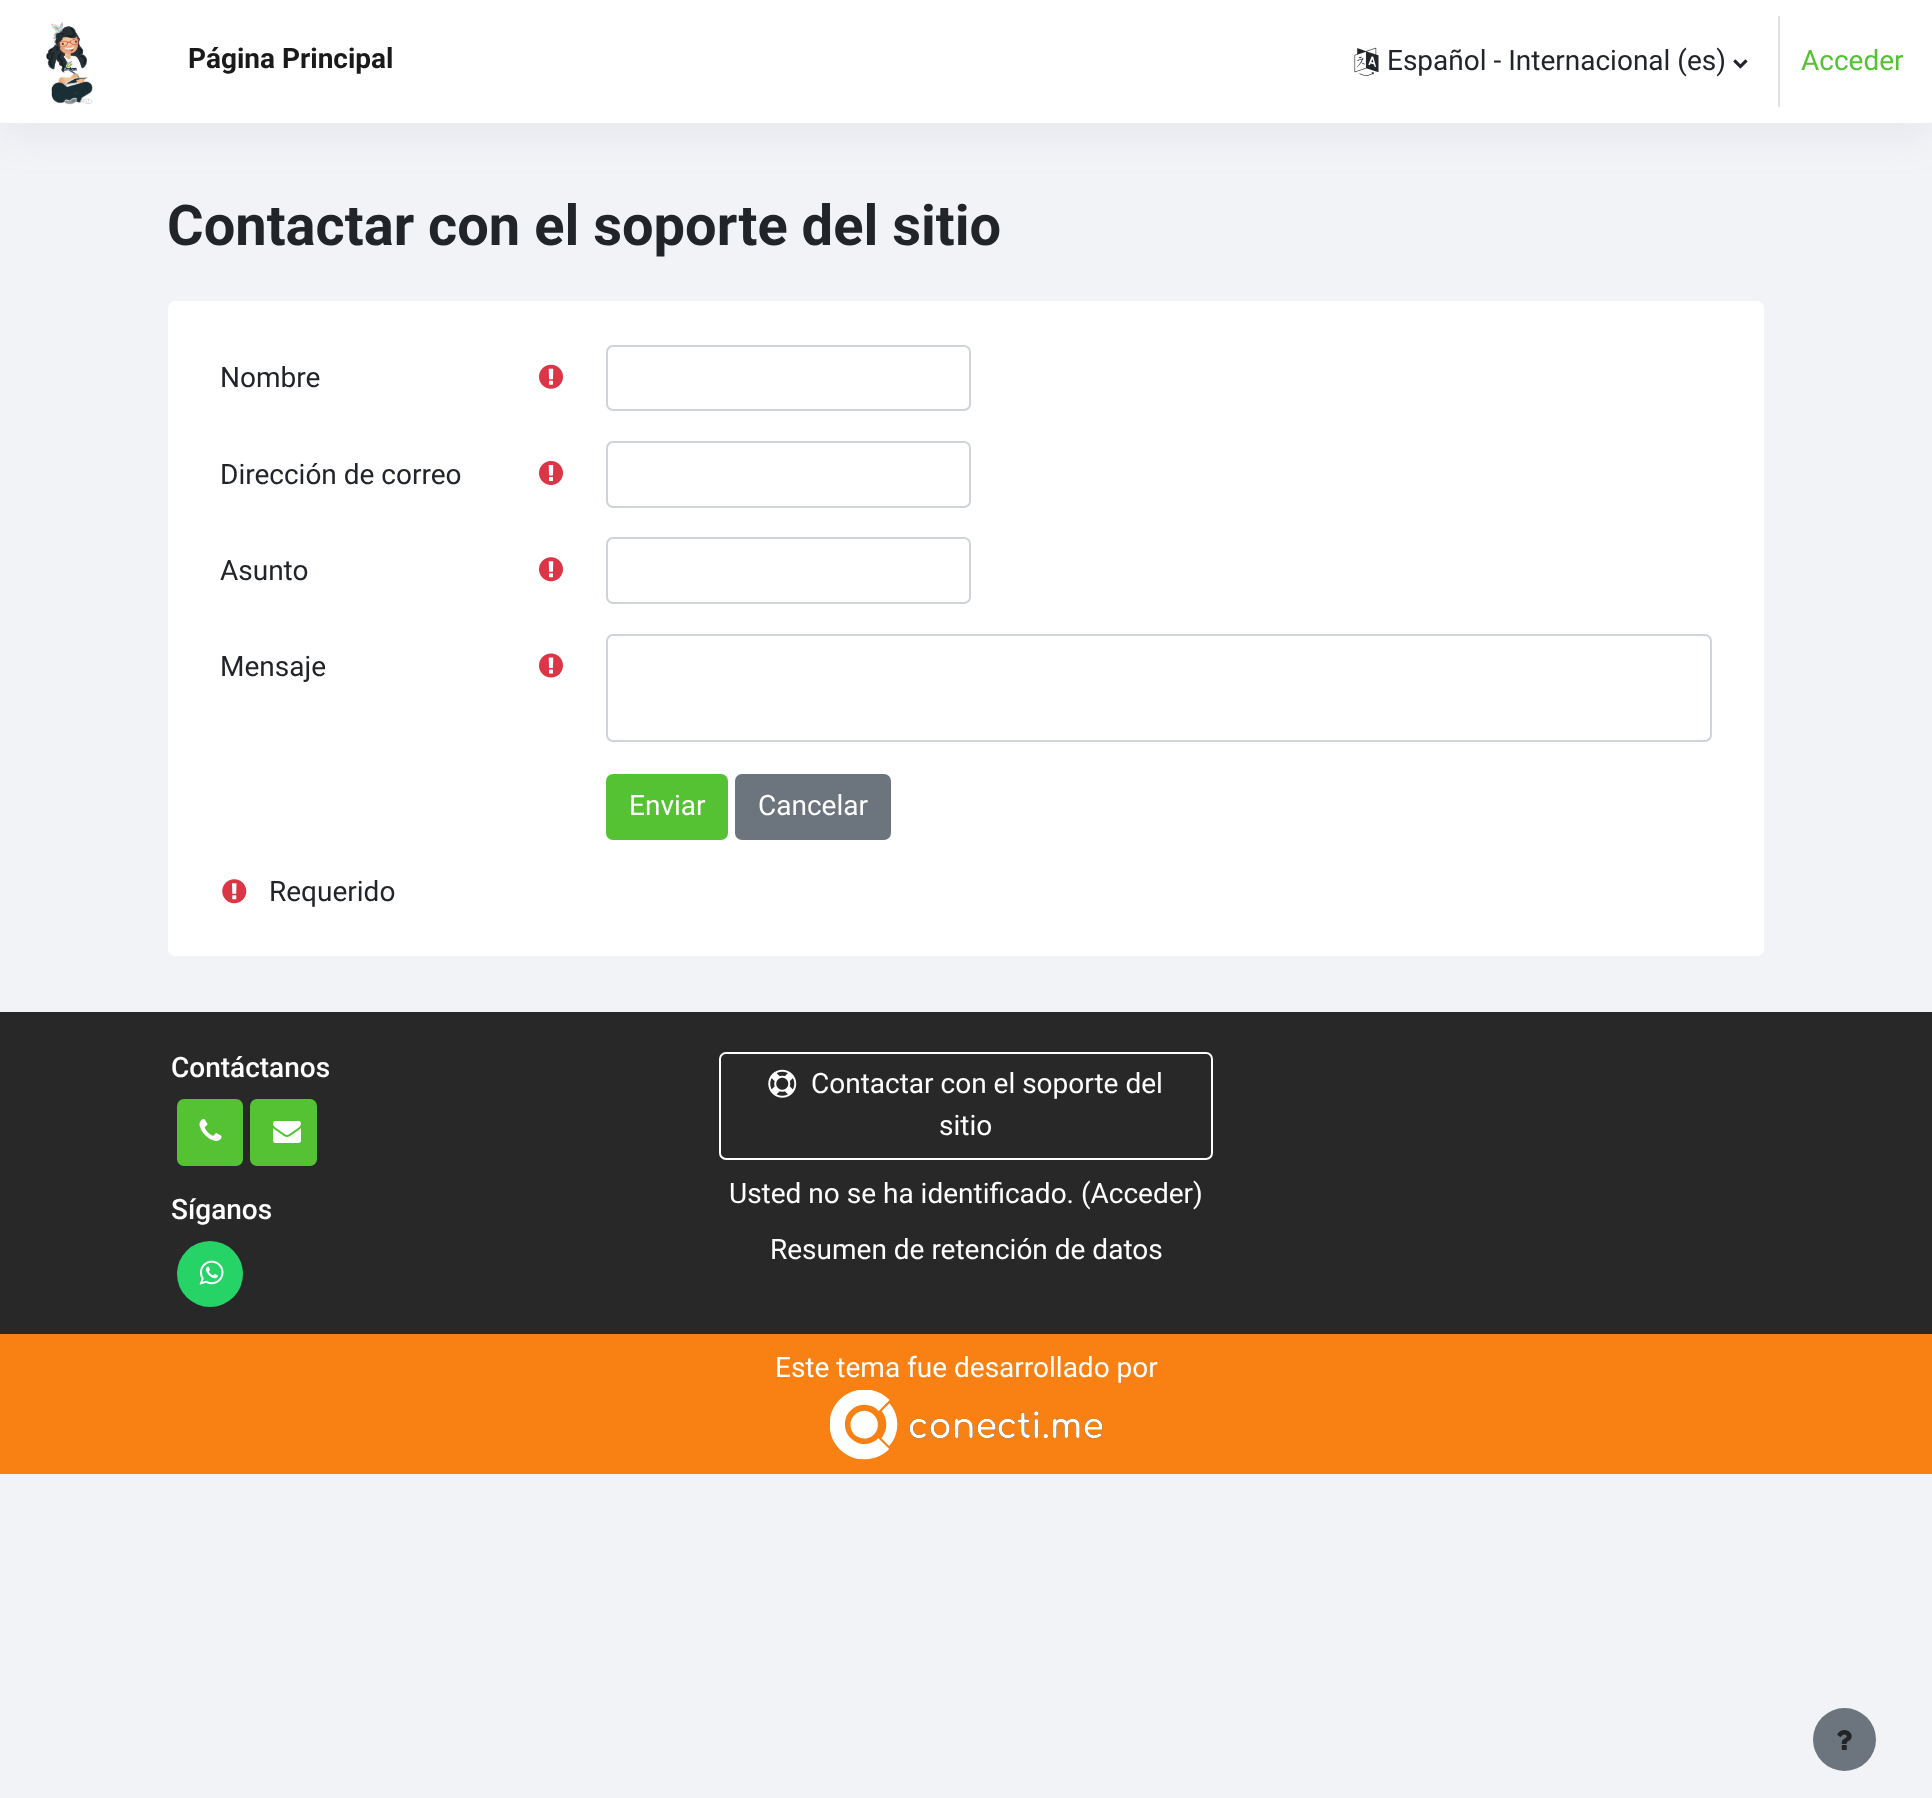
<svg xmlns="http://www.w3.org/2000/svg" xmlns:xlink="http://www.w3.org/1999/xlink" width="1932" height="1798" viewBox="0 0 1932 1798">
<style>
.cls-1{font:bold 28px Roboto;fill:#1a1a1a}
.cls-2{font:28px Roboto;fill:#212529}
.cls-3{font:28px Roboto;fill:#54c233}
.cls-4{font:bold 56px Roboto;fill:#212529}
.cls-5{font:28px Roboto;fill:#ffffff}
.cls-6{font:500 28px Roboto;fill:#ffffff}
</style>
<rect width="100%" height="100%" fill="#f2f3f7"/>
<rect fill="#8c98a4" fill-opacity="0.13" filter="blur(21px)" x="0" y="11" width="1932" height="122"/>
<rect fill="#ffffff" x="0" y="0" width="1932" height="123"/>
<image xlink:href="image0.png" x="46" y="22" width="47" height="83"/>
<image xlink:href="image1.png" x="1354" y="47" width="25" height="29"/>
<image xlink:href="image2.png" x="1733" y="59" width="15" height="10"/>
<rect fill="#dee2e6" x="1778" y="16" width="2" height="91"/>
<rect fill="#ffffff" x="168" y="301" width="1596" height="655" rx="7"/>
<image xlink:href="image3.png" x="539" y="364" width="24" height="25"/>
<rect fill="none" stroke="#ced4da" stroke-width="2" x="607" y="346" width="363" height="64" rx="6"/>
<image xlink:href="image4.png" x="539" y="461" width="24" height="24"/>
<rect fill="none" stroke="#ced4da" stroke-width="2" x="607" y="442" width="363" height="65" rx="6"/>
<image xlink:href="image5.png" x="539" y="557" width="24" height="25"/>
<rect fill="none" stroke="#ced4da" stroke-width="2" x="607" y="538" width="363" height="65" rx="6"/>
<image xlink:href="image6.png" x="539" y="653" width="24" height="25"/>
<rect fill="none" stroke="#ced4da" stroke-width="2" x="607" y="635" width="1104" height="106" rx="6"/>
<rect fill="#54c233" stroke="#54c233" stroke-width="2" x="607" y="775" width="120" height="64" rx="6"/>
<rect fill="#6c757d" stroke="#6c757d" stroke-width="2" x="736" y="775" width="154" height="64" rx="6"/>
<image xlink:href="image7.png" x="222" y="879" width="25" height="25"/>
<rect fill="#282829" x="0" y="1012" width="1932" height="322"/>
<rect fill="#54c233" x="177" y="1099" width="66" height="67" rx="7"/>
<image xlink:href="image8.png" x="199" y="1119" width="23" height="22"/>
<rect fill="#54c233" x="250" y="1099" width="67" height="67" rx="7"/>
<image xlink:href="image9.png" x="273" y="1121" width="28" height="22"/>
<circle fill="#25d366" cx="210" cy="1274" r="33"/>
<image xlink:href="image10.png" x="199" y="1260" width="25" height="25"/>
<rect fill="none" stroke="#ffffff" stroke-width="2" x="720" y="1053" width="492" height="106" rx="6"/>
<image xlink:href="image11.png" x="768" y="1069" width="29" height="29"/>
<rect fill="#f98012" x="0" y="1334" width="1932" height="140"/>
<image xlink:href="image12.png" x="830" y="1390" width="273" height="70"/>
<circle fill="#6c757d" cx="1844.5" cy="1739.5" r="31.5"/>
<image xlink:href="image13.png" x="1837" y="1730" width="15" height="20"/>
<text class="cls-1" x="188" y="68">Página Principal</text>
<text class="cls-2" x="1387" y="70">Español - Internacional (es)</text>
<text class="cls-3" x="1801" y="70">Acceder</text>
<text class="cls-4" x="167" y="245">Contactar con el soporte del sitio</text>
<text class="cls-2" x="220" y="387">Nombre</text>
<text class="cls-2" x="220" y="484">Dirección de correo</text>
<text class="cls-2" x="220" y="580">Asunto</text>
<text class="cls-2" x="220" y="676">Mensaje</text>
<text class="cls-5" x="629" y="815">Enviar</text>
<text class="cls-5" x="758" y="815">Cancelar</text>
<text class="cls-2" x="269" y="901">Requerido</text>
<text class="cls-6" x="171" y="1077">Contáctanos</text>
<text class="cls-6" x="171" y="1219">Síganos</text>
<text class="cls-5" x="811" y="1093">Contactar con el soporte del</text>
<text class="cls-5" x="939" y="1135">sitio</text>
<text class="cls-5" x="729" y="1203">Usted no se ha identificado. (Acceder)</text>
<text class="cls-5" x="770" y="1259">Resumen de retención de datos</text>
<text class="cls-5" x="775" y="1377">Este tema fue desarrollado por</text>
</svg>
